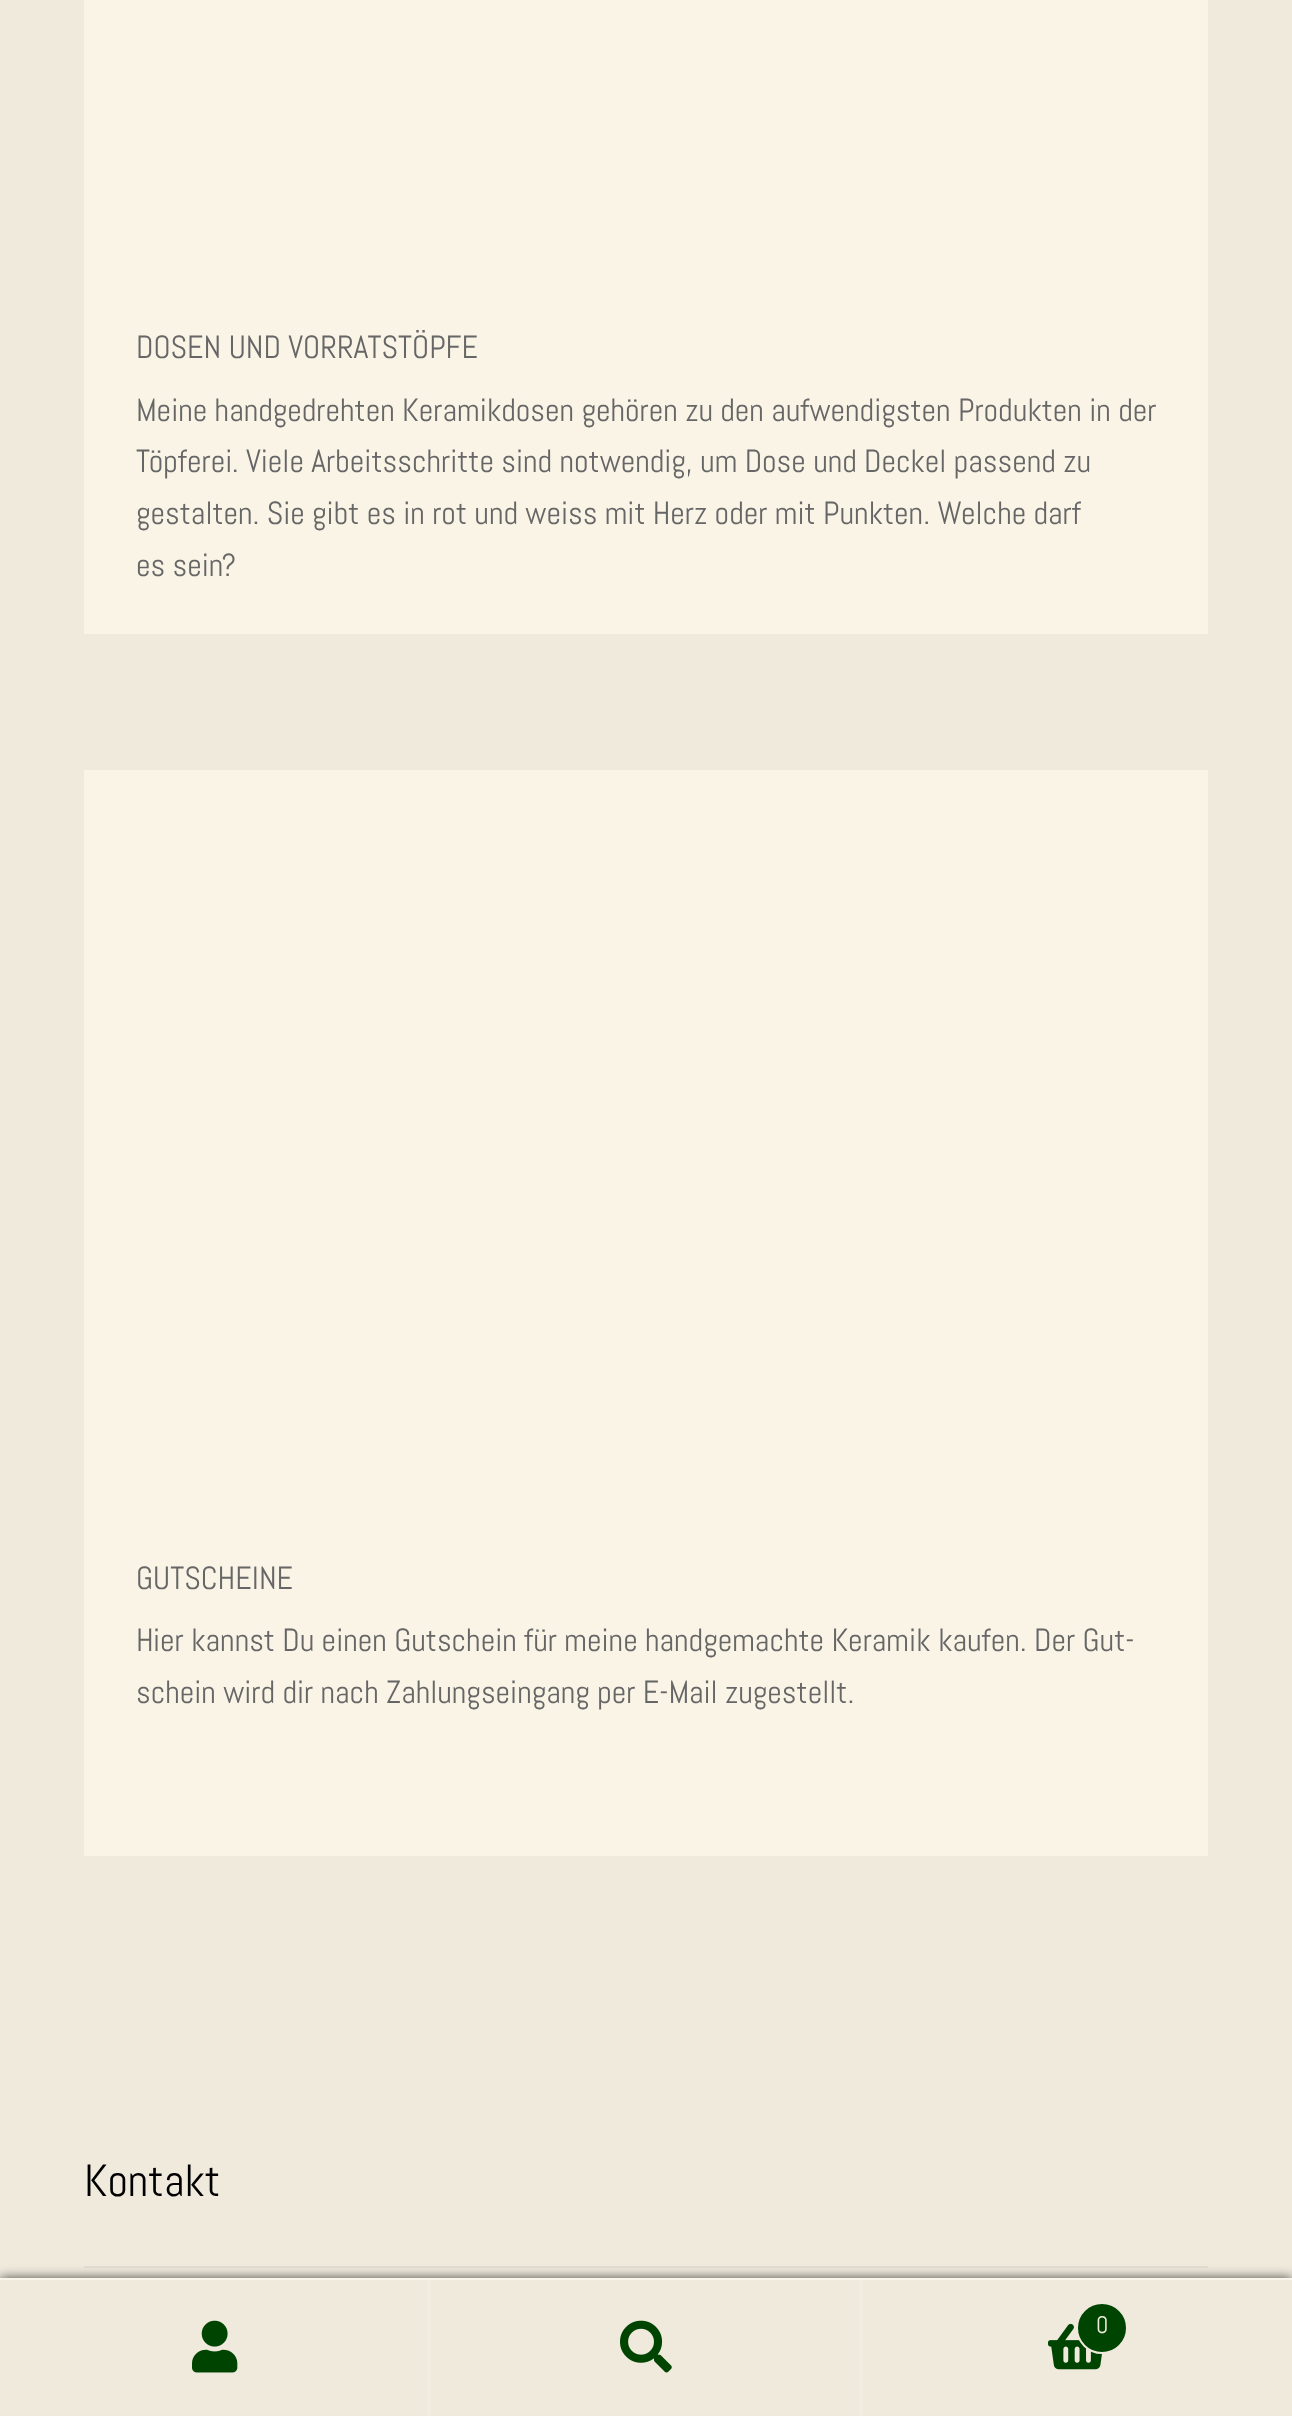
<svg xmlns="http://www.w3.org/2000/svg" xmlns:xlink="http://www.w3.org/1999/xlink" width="1292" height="2416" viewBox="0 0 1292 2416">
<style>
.cls-1{font:32px Abel;fill:#666666}
.cls-2{font:45px Abel;fill:#000000}
.cls-3{font:24px Abel;fill:#f0eadd}
</style>
<rect width="100%" height="100%" fill="#f0eadd"/>
<rect fill="#faf4e7" x="84" y="0" width="1124" height="634"/>
<rect fill="#faf4e7" x="84" y="770" width="1124" height="1086"/>
<rect fill="#e4ded2" x="84" y="2266" width="1124" height="2"/>
<rect fill="#000000" fill-opacity="0.7" filter="blur(6px)" x="0" y="2278" width="1292" height="138"/>
<rect fill="#fbf6ec" x="0" y="2278" width="1292" height="2"/>
<rect fill="#f0eadd" x="0" y="2280" width="428" height="136"/>
<rect fill="#f3eee4" x="428" y="2280" width="2" height="136"/>
<image xlink:href="image0.png" x="192" y="2320" width="46" height="53"/>
<rect fill="#f0eadd" x="430" y="2280" width="430" height="136"/>
<rect fill="#f3eee4" x="860" y="2280" width="2" height="136"/>
<image xlink:href="image1.png" x="620" y="2320" width="52" height="53"/>
<rect fill="#f0eadd" x="862" y="2280" width="430" height="136"/>
<image xlink:href="image2.png" x="1048" y="2323" width="55" height="47"/>
<circle fill="#004401" stroke="#f0eadd" stroke-width="2" cx="1102" cy="2328" r="25"/>
<text class="cls-1"><tspan x="136" y="358">DOSEN UND VORRATSTÖPFE</tspan><tspan x="136" y="421">Meine handgedrehten Keramikdosen gehören zu den aufwendigsten Produkten in der</tspan><tspan x="136" y="472">Töpferei. Viele Arbeitsschritte sind notwendig, um Dose und Deckel passend zu</tspan><tspan x="136" y="524">gestalten. Sie gibt es in rot und weiss mit Herz oder mit Punkten. Welche darf</tspan><tspan x="136" y="576">es sein?</tspan></text>
<text class="cls-1"><tspan x="136" y="1589">GUTSCHEINE</tspan><tspan x="136" y="1651">Hier kannst Du einen Gutschein für meine handgemachte Keramik kaufen. Der Gut-</tspan><tspan x="136" y="1703">schein wird dir nach Zahlungseingang per E-Mail zugestellt.</tspan></text>
<text class="cls-2" x="84" y="2196">Kontakt</text>
<text class="cls-3" x="1096" y="2333">0</text>
</svg>
